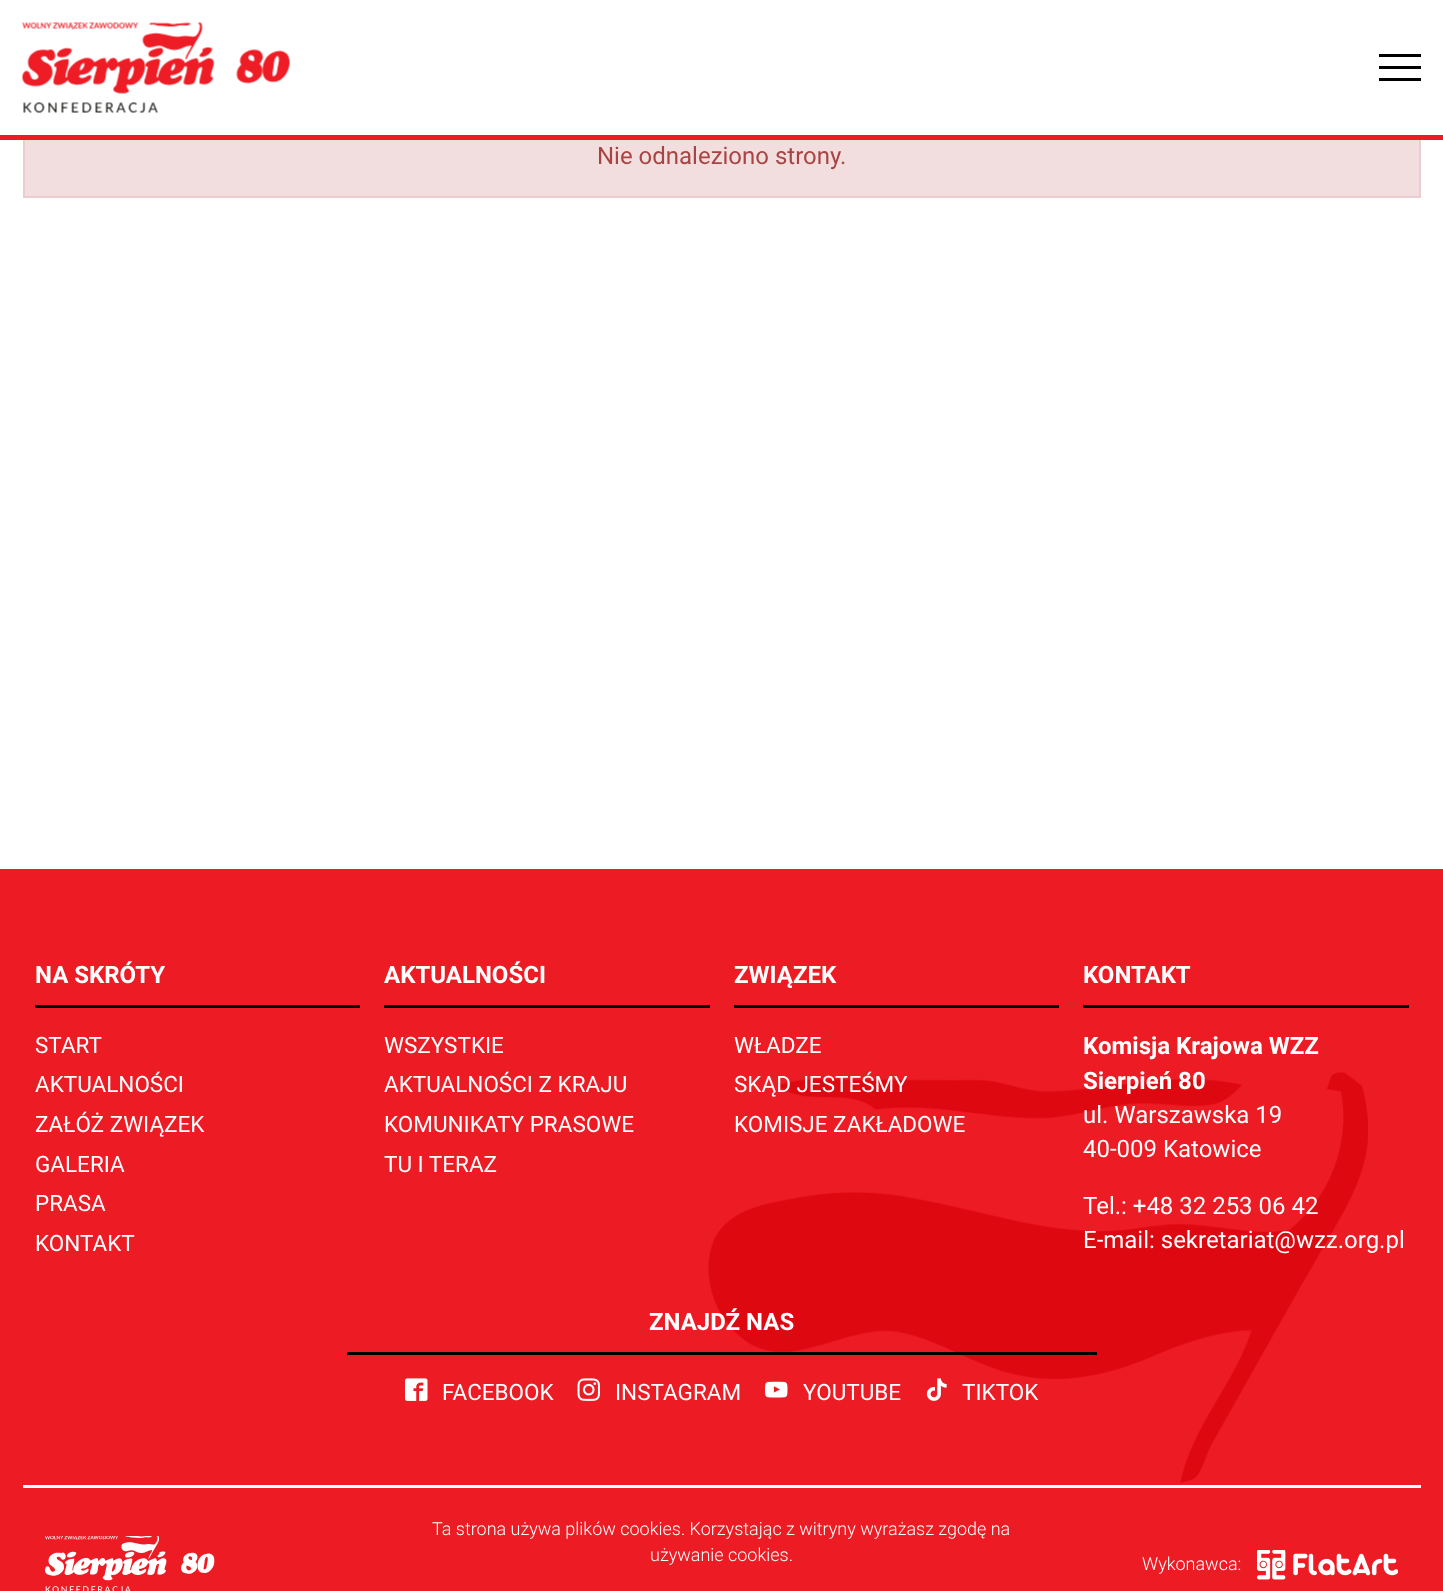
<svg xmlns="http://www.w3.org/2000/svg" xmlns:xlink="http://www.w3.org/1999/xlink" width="1443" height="1591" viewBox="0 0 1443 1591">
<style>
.cls-1{font:24px Roboto;fill:#a94442}
.cls-2{font:bold 24px Roboto;fill:#ffffff}
.cls-3{font:22.5px Roboto;fill:#ffffff}
.cls-4{font:24px Roboto;fill:#ffffff}
.cls-5{font:300 18px Roboto;fill:#ffffff}
</style>
<rect width="100%" height="100%" fill="#ffffff"/>
<rect fill="#f2dede" x="25" y="140" width="1394" height="56"/>
<rect fill="none" stroke="#ebccd1" stroke-width="2" x="24" y="118" width="1396" height="79"/>
<rect fill="#ffffff" x="23" y="117" width="1398" height="18"/>
<rect fill="#ed1c24" x="0" y="135" width="1443" height="5"/>
<image xlink:href="image0.png" x="22" y="22" width="268" height="91"/>
<rect fill="#000000" x="1379" y="54" width="42" height="3"/>
<rect fill="#000000" x="1379" y="66" width="42" height="3"/>
<rect fill="#000000" x="1379" y="78" width="42" height="3"/>
<rect fill="#ed1c24" x="0" y="869" width="1443" height="722"/>
<rect fill="#000000" x="35" y="1005" width="325" height="3"/>
<rect fill="#000000" x="384" y="1005" width="326" height="3"/>
<rect fill="#000000" x="734" y="1005" width="325" height="3"/>
<rect fill="#000000" x="1083" y="1005" width="326" height="3"/>
<image xlink:href="image5.png" x="708" y="1072" width="660" height="411"/>
<rect fill="#000000" x="347" y="1352" width="750" height="3"/>
<image xlink:href="image1.png" x="405" y="1378" width="23" height="23"/>
<image xlink:href="image2.png" x="577" y="1378" width="23" height="23"/>
<image xlink:href="image3.png" x="765" y="1381" width="23" height="17"/>
<image xlink:href="image4.png" x="926" y="1378" width="21" height="23"/>
<rect fill="#ffffff" x="23" y="1485" width="1398" height="3"/>
<image xlink:href="image6.png" x="45" y="1536" width="170" height="55"/>
<image xlink:href="image7.png" x="1257" y="1550" width="141" height="30"/>
<text class="cls-1" x="597" y="164">Nie odnaleziono strony.</text>
<text class="cls-2" x="35" y="983">NA SKRÓTY</text>
<text class="cls-3"><tspan x="35" y="1053">START</tspan><tspan x="35" y="1092">AKTUALNOŚCI</tspan><tspan x="35" y="1132">ZAŁÓŻ ZWIĄZEK</tspan><tspan x="35" y="1172">GALERIA</tspan><tspan x="35" y="1211">PRASA</tspan><tspan x="35" y="1251">KONTAKT</tspan></text>
<text class="cls-2" x="384" y="983">AKTUALNOŚCI</text>
<text class="cls-3"><tspan x="384" y="1053">WSZYSTKIE</tspan><tspan x="384" y="1092">AKTUALNOŚCI Z KRAJU</tspan><tspan x="384" y="1132">KOMUNIKATY PRASOWE</tspan><tspan x="384" y="1172">TU I TERAZ</tspan></text>
<text class="cls-2" x="734" y="983">ZWIĄZEK</text>
<text class="cls-3"><tspan x="734" y="1053">WŁADZE</tspan><tspan x="734" y="1092">SKĄD JESTEŚMY</tspan><tspan x="734" y="1132">KOMISJE ZAKŁADOWE</tspan></text>
<text class="cls-2" x="1083" y="983">KONTAKT</text>
<text class="cls-2"><tspan x="1083" y="1054">Komisja Krajowa WZZ</tspan><tspan x="1083" y="1089">Sierpień 80</tspan></text>
<text class="cls-4"><tspan x="1083" y="1123">ul. Warszawska 19</tspan><tspan x="1083" y="1157">40-009 Katowice</tspan></text>
<text class="cls-4"><tspan x="1083" y="1214">Tel.: +48 32 253 06 42</tspan><tspan x="1083" y="1248">E-mail: sekretariat@wzz.org.pl</tspan></text>
<text class="cls-2" x="649" y="1330">ZNAJDŹ NAS</text>
<text class="cls-3" x="442" y="1400">FACEBOOK</text>
<text class="cls-3" x="615" y="1400">INSTAGRAM</text>
<text class="cls-3" x="803" y="1400">YOUTUBE</text>
<text class="cls-3" x="962" y="1400">TIKTOK</text>
<text class="cls-5" x="432" y="1535">Ta strona używa plików cookies. Korzystając z witryny wyrażasz zgodę na</text>
<text class="cls-5" x="650" y="1561">używanie cookies.</text>
<text class="cls-5" x="1142" y="1570">Wykonawca:</text>
</svg>
